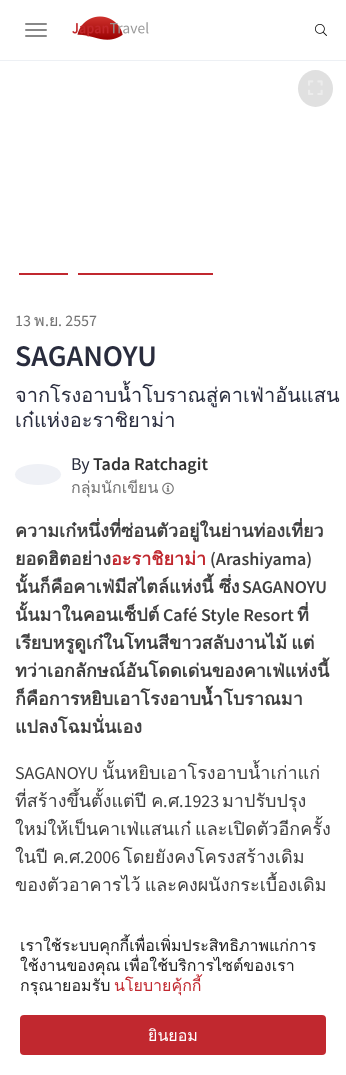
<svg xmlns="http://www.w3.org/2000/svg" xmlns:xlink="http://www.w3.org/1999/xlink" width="346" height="1075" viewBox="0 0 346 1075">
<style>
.cls-1{font:16px Source Sans Pro;fill:#737373}
.cls-2{font:16px Loma;fill:#737373}
.cls-3{font:600 30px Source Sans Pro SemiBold;fill:#292c3d}
.cls-4{font:20px Loma;fill:#292c3d}
.cls-5{font:18px Source Sans Pro;fill:#292c3d}
.cls-6{font:600 18px Source Sans Pro SemiBold;fill:#333333}
.cls-7{font:bold 18px Loma;fill:#404040}
.cls-8{font:bold 18px Loma;fill:#c1282f}
.cls-9{font:600 18px Source Sans Pro SemiBold;fill:#404040}
.cls-10{font:18px Source Sans Pro;fill:#404040}
.cls-11{font:18px Loma;fill:#404040}
.cls-12{font:16px Loma;fill:#222222}
.cls-13{font:16px Loma;fill:#c1282f}
.cls-14{font:16px Loma;fill:#ffffff}
</style>
<rect width="100%" height="100%" fill="#ffffff"/>
<rect fill="#edf0f4" x="0" y="60" width="346" height="1"/>
<rect fill="#888888" x="25" y="23" width="22" height="2" rx="1"/>
<rect fill="#888888" x="25" y="29" width="22" height="2" rx="1"/>
<rect fill="#888888" x="25" y="35" width="22" height="2" rx="1"/>
<image xlink:href="image0.png" x="72" y="16" width="77" height="24"/>
<image xlink:href="image1.png" x="315" y="24" width="12" height="12"/>
<ellipse fill="#e0e0e0" cx="315.5" cy="88.5" rx="17.5" ry="18.5"/>
<image xlink:href="image2.png" x="308" y="80" width="15" height="15"/>
<rect fill="#c1282f" x="19" y="273" width="49" height="2"/>
<rect fill="#c1282f" x="78" y="273" width="135" height="2"/>
<ellipse fill="#eff1f6" cx="38" cy="474.5" rx="23" ry="10.5"/>
<image xlink:href="image3.png" x="162" y="482" width="12" height="13"/>
<rect fill="#c1282f" x="20" y="1015" width="306" height="40" rx="4"/>
<text class="cls-1" x="15" y="326">13</text>
<text class="cls-2" x="34" y="326">พ</text>
<text class="cls-1" x="45" y="326">.</text>
<text class="cls-2" x="49" y="326">ย</text>
<text class="cls-1" x="58" y="326">. 2557</text>
<text class="cls-3" x="15" y="366">SAGANOYU</text>
<text class="cls-4"><tspan x="15" y="402">จากโรงอาบน้ำโบราณสู่คาเฟ่าอันแสน</tspan><tspan x="15" y="427">เก๋แห่งอะราชิยาม่า</tspan></text>
<text class="cls-5" x="71" y="470">By</text>
<text class="cls-6" x="93" y="470">Tada Ratchagit</text>
<text class="cls-2" x="71" y="493">กลุ่มนักเขียน</text>
<text class="cls-7"><tspan x="15" y="537">ความเก๋หนึ่งที่ซ่อนตัวอยู่ในย่านท่องเที่ยว</tspan><tspan x="15" y="565">ยอดฮิตอย่าง</tspan></text>
<text class="cls-8" x="111" y="565">อะราชิยาม่า</text>
<text class="cls-9" x="210" y="565">(Arashiyama)</text>
<text class="cls-7" x="15" y="593" word-spacing="-1">นั้นก็คือคาเฟ่มีสไตล์แห่งนี้ ซึ่ง</text>
<text class="cls-9" x="242" y="593">SAGANOYU</text>
<text class="cls-7" x="15" y="621">นั้นมาในคอนเซ็ปต์</text>
<text class="cls-9" x="163" y="621">Café Style Resort</text>
<text class="cls-7" x="297" y="621">ที่</text>
<text class="cls-7"><tspan x="15" y="649" word-spacing="-2">เรียบหรูดูเก๋ในโทนสีขาวสลับงานไม้ แต่</tspan><tspan x="15" y="677">ทว่าเอกลักษณ์อันโดดเด่นของคาเฟ่แห่งนี้</tspan><tspan x="15" y="705">ก็คือการหยิบเอาโรงอาบน้ำโบราณมา</tspan><tspan x="15" y="733">แปลงโฉมนั่นเอง</tspan></text>
<text class="cls-10" x="15" y="779">SAGANOYU</text>
<text class="cls-11" x="102" y="779">นั้นหยิบเอาโรงอาบน้ำเก่าแก่</text>
<text class="cls-11" x="15" y="807" word-spacing="-1">ที่สร้างขึ้นตั้งแต่ปี ค</text>
<text class="cls-10" x="163" y="807">.</text>
<text class="cls-11" x="168" y="807">ศ</text>
<text class="cls-10" x="179" y="807">.1923</text>
<text class="cls-11" x="222" y="807">มาปรับปรุง</text>
<text class="cls-11"><tspan x="15" y="835" word-spacing="-2">ใหม่ให้เป็นคาเฟ่แสนเก๋ และเปิดตัวอีกครั้ง</tspan><tspan x="15" y="863" word-spacing="-1">ในปี ค</tspan></text>
<text class="cls-10" x="64" y="863">.</text>
<text class="cls-11" x="69" y="863">ศ</text>
<text class="cls-10" x="80" y="863">.2006</text>
<text class="cls-11" x="123" y="863">โดยยังคงโครงสร้างเดิม</text>
<text class="cls-11" x="15" y="891" word-spacing="-2">ของตัวอาคารไว้ และคงผนังกระเบื้องเดิม</text>
<text class="cls-12"><tspan x="20" y="951">เราใช้ระบบคุกกี้เพื่อเพิ่มประสิทธิภาพแก่การ</tspan><tspan x="20" y="971" word-spacing="-2">ใช้งานของคุณ เพื่อใช้บริการไซต์ของเรา</tspan><tspan x="20" y="991">กรุณายอมรับ</tspan></text>
<text class="cls-13" x="114" y="991">นโยบายคุ้กกี้</text>
<text class="cls-14" x="148" y="1041">ยินยอม</text>
</svg>
